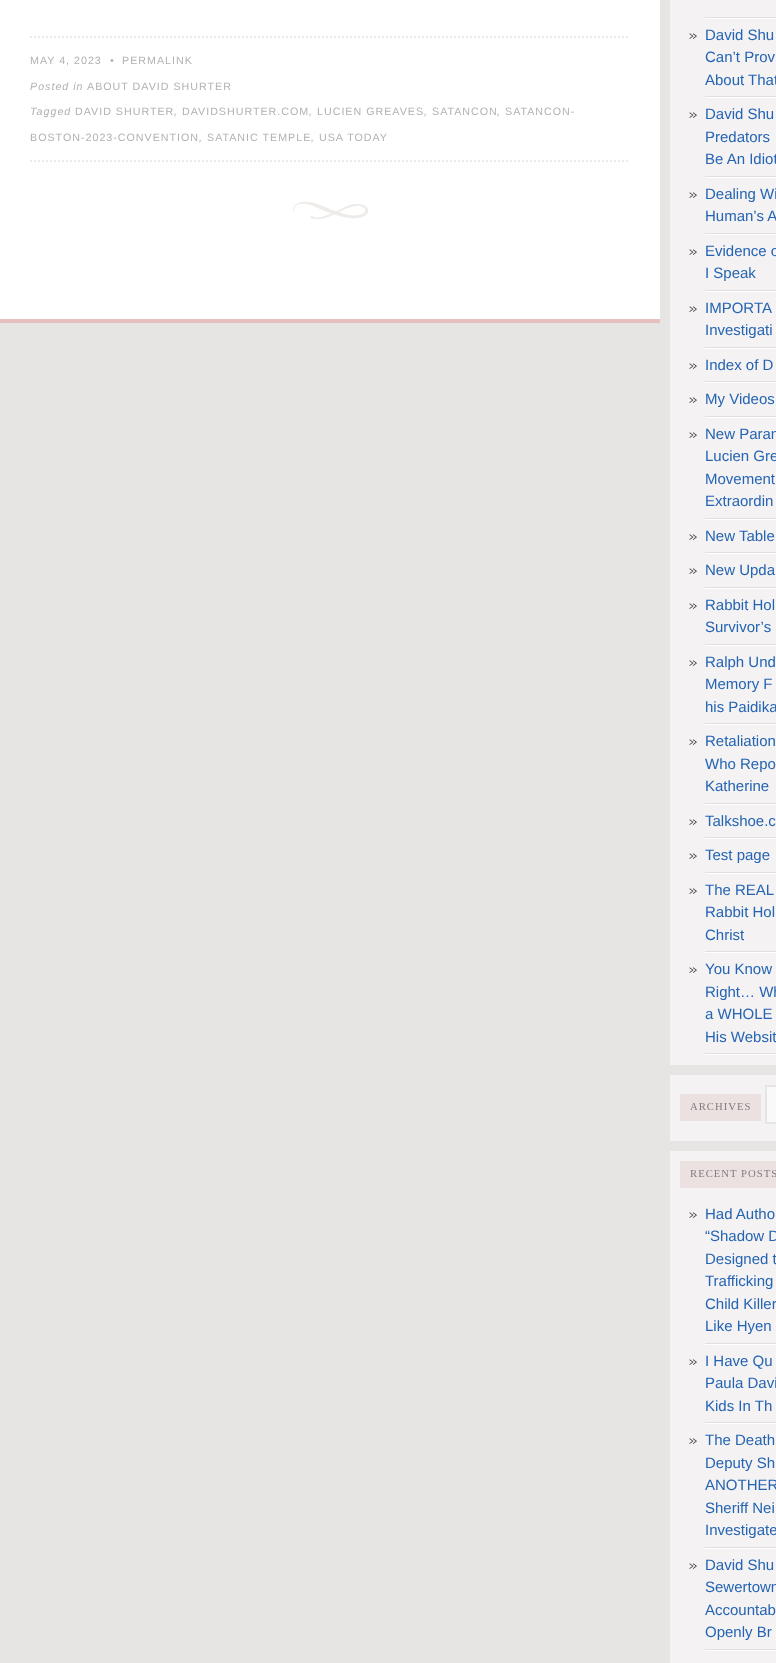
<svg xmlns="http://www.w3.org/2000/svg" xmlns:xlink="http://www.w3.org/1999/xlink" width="776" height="1663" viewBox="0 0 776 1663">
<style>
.cls-1{font:10.7px Liberation Sans;letter-spacing:1px;fill:#b1b1b1}
.cls-2{font:italic 10.7px Liberation Sans;letter-spacing:1px;fill:#b1b1b1}
.cls-3{font:15px Liberation Sans;fill:#2464b3}
.cls-4{font:10.7px Liberation Serif;letter-spacing:1px;fill:#7e7e7e}
</style>
<rect width="100%" height="100%" fill="#e7e4e4"/>
<rect fill="#ffffff" x="0" y="0" width="660" height="319"/>
<rect fill="#e6bfbf" x="0" y="319" width="660" height="4"/>
<path fill="none" stroke="#eaeaea" stroke-width="2" stroke-dasharray="2 2" d="M30 37H630"/>
<path fill="none" stroke="#eaeaea" stroke-width="2" stroke-dasharray="2 2" d="M30 161H630"/>
<image xlink:href="image0.png" x="293" y="202" width="75" height="17"/>
<rect fill="#f4f2f2" x="670" y="0" width="106" height="1065"/>
<rect fill="#ffffff" x="705" y="1054" width="71" height="1"/>
<rect fill="#dfdfdf" x="705" y="17" width="71" height="1"/>
<rect fill="#ffffff" x="705" y="18" width="71" height="1"/>
<rect fill="#dfdfdf" x="705" y="96" width="71" height="1"/>
<image xlink:href="image1.png" x="689" y="33" width="8" height="6"/>
<rect fill="#ffffff" x="705" y="97" width="71" height="1"/>
<rect fill="#dfdfdf" x="705" y="176" width="71" height="1"/>
<image xlink:href="image1.png" x="689" y="112" width="8" height="6"/>
<rect fill="#ffffff" x="705" y="177" width="71" height="1"/>
<rect fill="#dfdfdf" x="705" y="233" width="71" height="1"/>
<image xlink:href="image1.png" x="689" y="192" width="8" height="6"/>
<rect fill="#ffffff" x="705" y="234" width="71" height="1"/>
<rect fill="#dfdfdf" x="705" y="290" width="71" height="1"/>
<image xlink:href="image1.png" x="689" y="249" width="8" height="6"/>
<rect fill="#ffffff" x="705" y="291" width="71" height="1"/>
<rect fill="#dfdfdf" x="705" y="347" width="71" height="1"/>
<image xlink:href="image1.png" x="689" y="306" width="8" height="6"/>
<rect fill="#ffffff" x="705" y="348" width="71" height="1"/>
<rect fill="#dfdfdf" x="705" y="381" width="71" height="1"/>
<image xlink:href="image1.png" x="689" y="363" width="8" height="6"/>
<rect fill="#ffffff" x="705" y="382" width="71" height="1"/>
<rect fill="#dfdfdf" x="705" y="416" width="71" height="1"/>
<image xlink:href="image1.png" x="689" y="397" width="8" height="6"/>
<rect fill="#ffffff" x="705" y="417" width="71" height="1"/>
<rect fill="#dfdfdf" x="705" y="518" width="71" height="1"/>
<image xlink:href="image1.png" x="689" y="432" width="8" height="6"/>
<rect fill="#ffffff" x="705" y="519" width="71" height="1"/>
<rect fill="#dfdfdf" x="705" y="552" width="71" height="1"/>
<image xlink:href="image1.png" x="689" y="534" width="8" height="6"/>
<rect fill="#ffffff" x="705" y="553" width="71" height="1"/>
<rect fill="#dfdfdf" x="705" y="587" width="71" height="1"/>
<image xlink:href="image1.png" x="689" y="568" width="8" height="6"/>
<rect fill="#ffffff" x="705" y="588" width="71" height="1"/>
<rect fill="#dfdfdf" x="705" y="644" width="71" height="1"/>
<image xlink:href="image1.png" x="689" y="603" width="8" height="6"/>
<rect fill="#ffffff" x="705" y="645" width="71" height="1"/>
<rect fill="#dfdfdf" x="705" y="723" width="71" height="1"/>
<image xlink:href="image1.png" x="689" y="660" width="8" height="6"/>
<rect fill="#ffffff" x="705" y="724" width="71" height="1"/>
<rect fill="#dfdfdf" x="705" y="803" width="71" height="1"/>
<image xlink:href="image1.png" x="689" y="739" width="8" height="6"/>
<rect fill="#ffffff" x="705" y="804" width="71" height="1"/>
<rect fill="#dfdfdf" x="705" y="837" width="71" height="1"/>
<image xlink:href="image1.png" x="689" y="819" width="8" height="6"/>
<rect fill="#ffffff" x="705" y="838" width="71" height="1"/>
<rect fill="#dfdfdf" x="705" y="872" width="71" height="1"/>
<image xlink:href="image1.png" x="689" y="853" width="8" height="6"/>
<rect fill="#ffffff" x="705" y="873" width="71" height="1"/>
<rect fill="#dfdfdf" x="705" y="951" width="71" height="1"/>
<image xlink:href="image1.png" x="689" y="888" width="8" height="6"/>
<rect fill="#ffffff" x="705" y="952" width="71" height="1"/>
<rect fill="#dfdfdf" x="705" y="1053" width="71" height="1"/>
<image xlink:href="image1.png" x="689" y="967" width="8" height="6"/>
<rect fill="#f4f2f2" x="670" y="1075" width="106" height="66"/>
<rect fill="#ece1e1" x="680" y="1094" width="81" height="27"/>
<rect fill="#f9f9f9" stroke="#e5e5e5" stroke-width="2" x="766" y="1086" width="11" height="37"/>
<rect fill="#f4f2f2" x="670" y="1151" width="106" height="512"/>
<rect fill="#ece1e1" x="680" y="1161" width="96" height="27"/>
<rect fill="#dfdfdf" x="705" y="1343" width="71" height="1"/>
<image xlink:href="image1.png" x="689" y="1212" width="8" height="6"/>
<rect fill="#ffffff" x="705" y="1344" width="71" height="1"/>
<rect fill="#dfdfdf" x="705" y="1422" width="71" height="1"/>
<image xlink:href="image1.png" x="689" y="1359" width="8" height="6"/>
<rect fill="#ffffff" x="705" y="1423" width="71" height="1"/>
<rect fill="#dfdfdf" x="705" y="1547" width="71" height="1"/>
<image xlink:href="image1.png" x="689" y="1438" width="8" height="6"/>
<rect fill="#ffffff" x="705" y="1548" width="71" height="1"/>
<rect fill="#dfdfdf" x="705" y="1649" width="71" height="1"/>
<image xlink:href="image1.png" x="689" y="1563" width="8" height="6"/>
<rect fill="#ffffff" x="705" y="1650" width="71" height="1"/>
<text class="cls-1" x="30" y="64">MAY 4, 2023</text>
<text class="cls-2" x="110" y="64">•</text>
<text class="cls-1" x="122" y="64">PERMALINK</text>
<text class="cls-2" x="30" y="90">Posted in</text>
<text class="cls-1" x="87" y="90">ABOUT DAVID SHURTER</text>
<text class="cls-2" x="30" y="115">Tagged</text>
<text class="cls-1" x="75" y="115">DAVID SHURTER</text>
<text class="cls-2" x="174" y="115">,</text>
<text class="cls-1" x="182" y="115">DAVIDSHURTER.COM</text>
<text class="cls-2" x="309" y="115">,</text>
<text class="cls-1" x="317" y="115">LUCIEN GREAVES</text>
<text class="cls-2" x="424" y="115">,</text>
<text class="cls-1" x="432" y="115">SATANCON</text>
<text class="cls-2" x="497" y="115">,</text>
<text class="cls-1" x="505" y="115">SATANCON-</text>
<text class="cls-1" x="30" y="141">BOSTON-2023-CONVENTION</text>
<text class="cls-2" x="199" y="141">,</text>
<text class="cls-1" x="207" y="141">SATANIC TEMPLE</text>
<text class="cls-2" x="311" y="141">,</text>
<text class="cls-1" x="319" y="141">USA TODAY</text>
<text class="cls-3"><tspan x="705" y="40">David Shu</tspan><tspan x="705" y="62">Can’t Prov</tspan><tspan x="705" y="85">About That</tspan></text>
<text class="cls-3"><tspan x="705" y="119">David Shu</tspan><tspan x="705" y="142">Predators</tspan><tspan x="705" y="164">Be An Idiot</tspan></text>
<text class="cls-3"><tspan x="705" y="199">Dealing Wi</tspan><tspan x="705" y="221">Human’s A</tspan></text>
<text class="cls-3"><tspan x="705" y="256">Evidence o</tspan><tspan x="705" y="278">I Speak</tspan></text>
<text class="cls-3"><tspan x="705" y="313">IMPORTA</tspan><tspan x="705" y="335">Investigati</tspan></text>
<text class="cls-3" x="705" y="370">Index of D</text>
<text class="cls-3" x="705" y="404">My Videos</text>
<text class="cls-3"><tspan x="705" y="439">New Paran</tspan><tspan x="705" y="461">Lucien Gre</tspan><tspan x="705" y="484">Movement</tspan><tspan x="705" y="506">Extraordin</tspan></text>
<text class="cls-3" x="705" y="541">New Table</text>
<text class="cls-3" x="705" y="575">New Upda</text>
<text class="cls-3"><tspan x="705" y="610">Rabbit Hol</tspan><tspan x="705" y="632">Survivor’s</tspan></text>
<text class="cls-3"><tspan x="705" y="667">Ralph Und</tspan><tspan x="705" y="689">Memory F</tspan><tspan x="705" y="712">his Paidika</tspan></text>
<text class="cls-3"><tspan x="705" y="746">Retaliation</tspan><tspan x="705" y="769">Who Repo</tspan><tspan x="705" y="791">Katherine</tspan></text>
<text class="cls-3" x="705" y="826">Talkshoe.c</text>
<text class="cls-3" x="705" y="860">Test page</text>
<text class="cls-3"><tspan x="705" y="895">The REAL</tspan><tspan x="705" y="917">Rabbit Hol</tspan><tspan x="705" y="940">Christ</tspan></text>
<text class="cls-3"><tspan x="705" y="974">You Know</tspan><tspan x="705" y="997">Right… Wh</tspan><tspan x="705" y="1019">a WHOLE</tspan><tspan x="705" y="1042">His Websit</tspan></text>
<text class="cls-4" x="690" y="1110">ARCHIVES</text>
<text class="cls-4" x="690" y="1177">RECENT POSTS</text>
<text class="cls-3"><tspan x="705" y="1219">Had Autho</tspan><tspan x="705" y="1241">“Shadow D</tspan><tspan x="705" y="1264">Designed t</tspan><tspan x="705" y="1286">Trafficking</tspan><tspan x="705" y="1309">Child Killer</tspan><tspan x="705" y="1331">Like Hyen</tspan></text>
<text class="cls-3"><tspan x="705" y="1366">I Have Qu</tspan><tspan x="705" y="1388">Paula Davi</tspan><tspan x="705" y="1411">Kids In Th</tspan></text>
<text class="cls-3"><tspan x="705" y="1445">The Death</tspan><tspan x="705" y="1468">Deputy Sh</tspan><tspan x="705" y="1490">ANOTHER</tspan><tspan x="705" y="1513">Sheriff Nei</tspan><tspan x="705" y="1535">Investigate</tspan></text>
<text class="cls-3"><tspan x="705" y="1570">David Shu</tspan><tspan x="705" y="1592">Sewertown</tspan><tspan x="705" y="1615">Accountab</tspan><tspan x="705" y="1637">Openly Br</tspan></text>
</svg>
